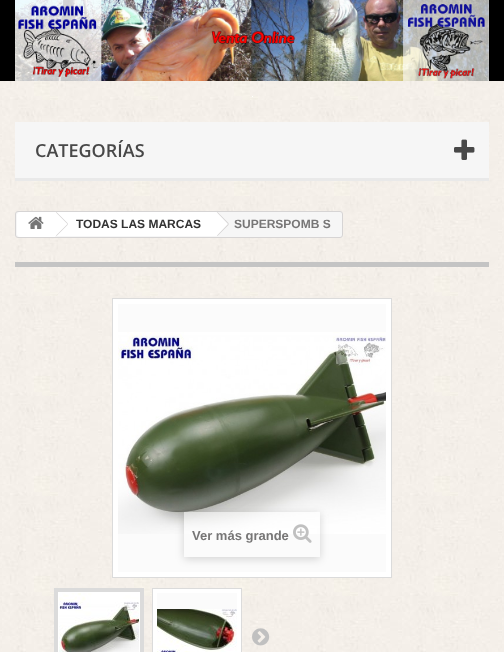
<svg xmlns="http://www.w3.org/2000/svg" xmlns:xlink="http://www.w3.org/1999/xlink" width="504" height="652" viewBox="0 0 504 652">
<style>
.cls-1{font:600 18px Open Sans;fill:#484848}
.cls-2{font:bold 12px Liberation Sans;fill:#333333}
.cls-3{font:bold 12px Liberation Sans;fill:#777676}
.cls-4{font:bold 13px Liberation Sans;fill:#777676}
</style>
<defs>
<clipPath id="clip1"><path d="M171 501H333V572H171ZM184 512H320V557H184Z" clip-rule="evenodd"/></clipPath>
</defs>
<rect width="100%" height="100%" fill="#ffffff"/>
<image xlink:href="image0.png" x="0" y="81" width="504" height="115"/>
<rect fill="#000000" x="0" y="0" width="504" height="81"/>
<image xlink:href="image1.png" x="15" y="0" width="474" height="81"/>
<rect fill="#ffffff" x="252" y="96" width="1" height="1"/>
<rect fill="#f6f6f6" x="15" y="122" width="474" height="56"/>
<rect fill="#e9e9e9" x="15" y="178" width="474" height="3"/>
<image xlink:href="image2.png" x="454" y="139" width="21" height="21"/>
<image xlink:href="image3.png" x="0" y="196" width="504" height="456"/>
<rect fill="#f6f6f6" stroke="#d6d4d4" x="15.5" y="211.5" width="327" height="26" rx="2.5"/>
<path fill="#ffffff" d="M20 212H55V237H20C18.5 237 17 235.5 17 234V215C17 213.5 18.5 212 20 212Z"/>
<image xlink:href="image4.png" x="28" y="216" width="16" height="13"/>
<rect fill="#ffffff" x="55" y="212" width="161" height="24"/>
<path fill="#d6d4d4" d="M56.5 212L68 223.5L67.5 224L56 212.5ZM67.5 224L68 224.5L56.5 236L56 235.5Z"/>
<path fill="#ffffff" d="M218 212.5L228 222.5C229 223.5 229 224.5 228 225.5L218 235.5C217.5 236 216 236 215.5 235.5L205.5 225.5C204.5 224.5 204.5 223.5 205.5 222.5L215.5 212.5C216 212 217.5 212 218 212.5Z"/>
<path fill="#d6d4d4" d="M217.5 212L229 223.5L228 224L217 212.5ZM228 224L229 224.5L217.5 236L217 235.5Z"/>
<rect fill="#c4c4c4" x="15" y="262" width="474" height="5"/>
<rect fill="#ffffff" stroke="#dbdbdb" x="112.5" y="298.5" width="279" height="279"/>
<rect fill="#fbfbfb" x="118" y="304" width="268" height="268"/>
<image xlink:href="image5.png" x="118" y="332" width="268" height="202"/>
<g clip-path="url(#clip1)">
<rect fill="#000000" fill-opacity="0.16" filter="blur(4px)" x="184" y="514" width="136" height="45"/>
</g>
<rect fill="#ffffff" fill-opacity="0.5" x="184" y="512" width="136" height="22"/>
<image xlink:href="image6.png" x="293" y="524" width="19" height="19"/>
<rect fill="none" stroke="#dbdbdb" x="54.5" y="588.5" width="89" height="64"/>
<rect fill="none" stroke="#dbdbdb" stroke-width="3" x="56.5" y="590.5" width="85" height="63"/>
<rect fill="none" stroke="#ffffff" x="58.5" y="592.5" width="81" height="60"/>
<image xlink:href="image7.png" x="59" y="593" width="80" height="59"/>
<rect fill="none" stroke="#dbdbdb" x="152.5" y="588.5" width="89" height="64"/>
<rect fill="#fbfbfb" x="157" y="593" width="80" height="16"/>
<rect fill="none" stroke="#ffffff" stroke-width="3" x="154.5" y="590.5" width="85" height="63"/>
<rect fill="none" stroke="#ffffff" x="156.5" y="592.5" width="81" height="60"/>
<image xlink:href="image8.png" x="157" y="609" width="80" height="43"/>
<image xlink:href="image9.png" x="252" y="628" width="18" height="18"/>
<text class="cls-1" x="35" y="157">CATEGORÍAS</text>
<text class="cls-2" x="76" y="228">TODAS LAS MARCAS</text>
<text class="cls-3" x="234" y="228">SUPERSPOMB S</text>
<text class="cls-4" x="192" y="540">Ver más grande</text>
</svg>
